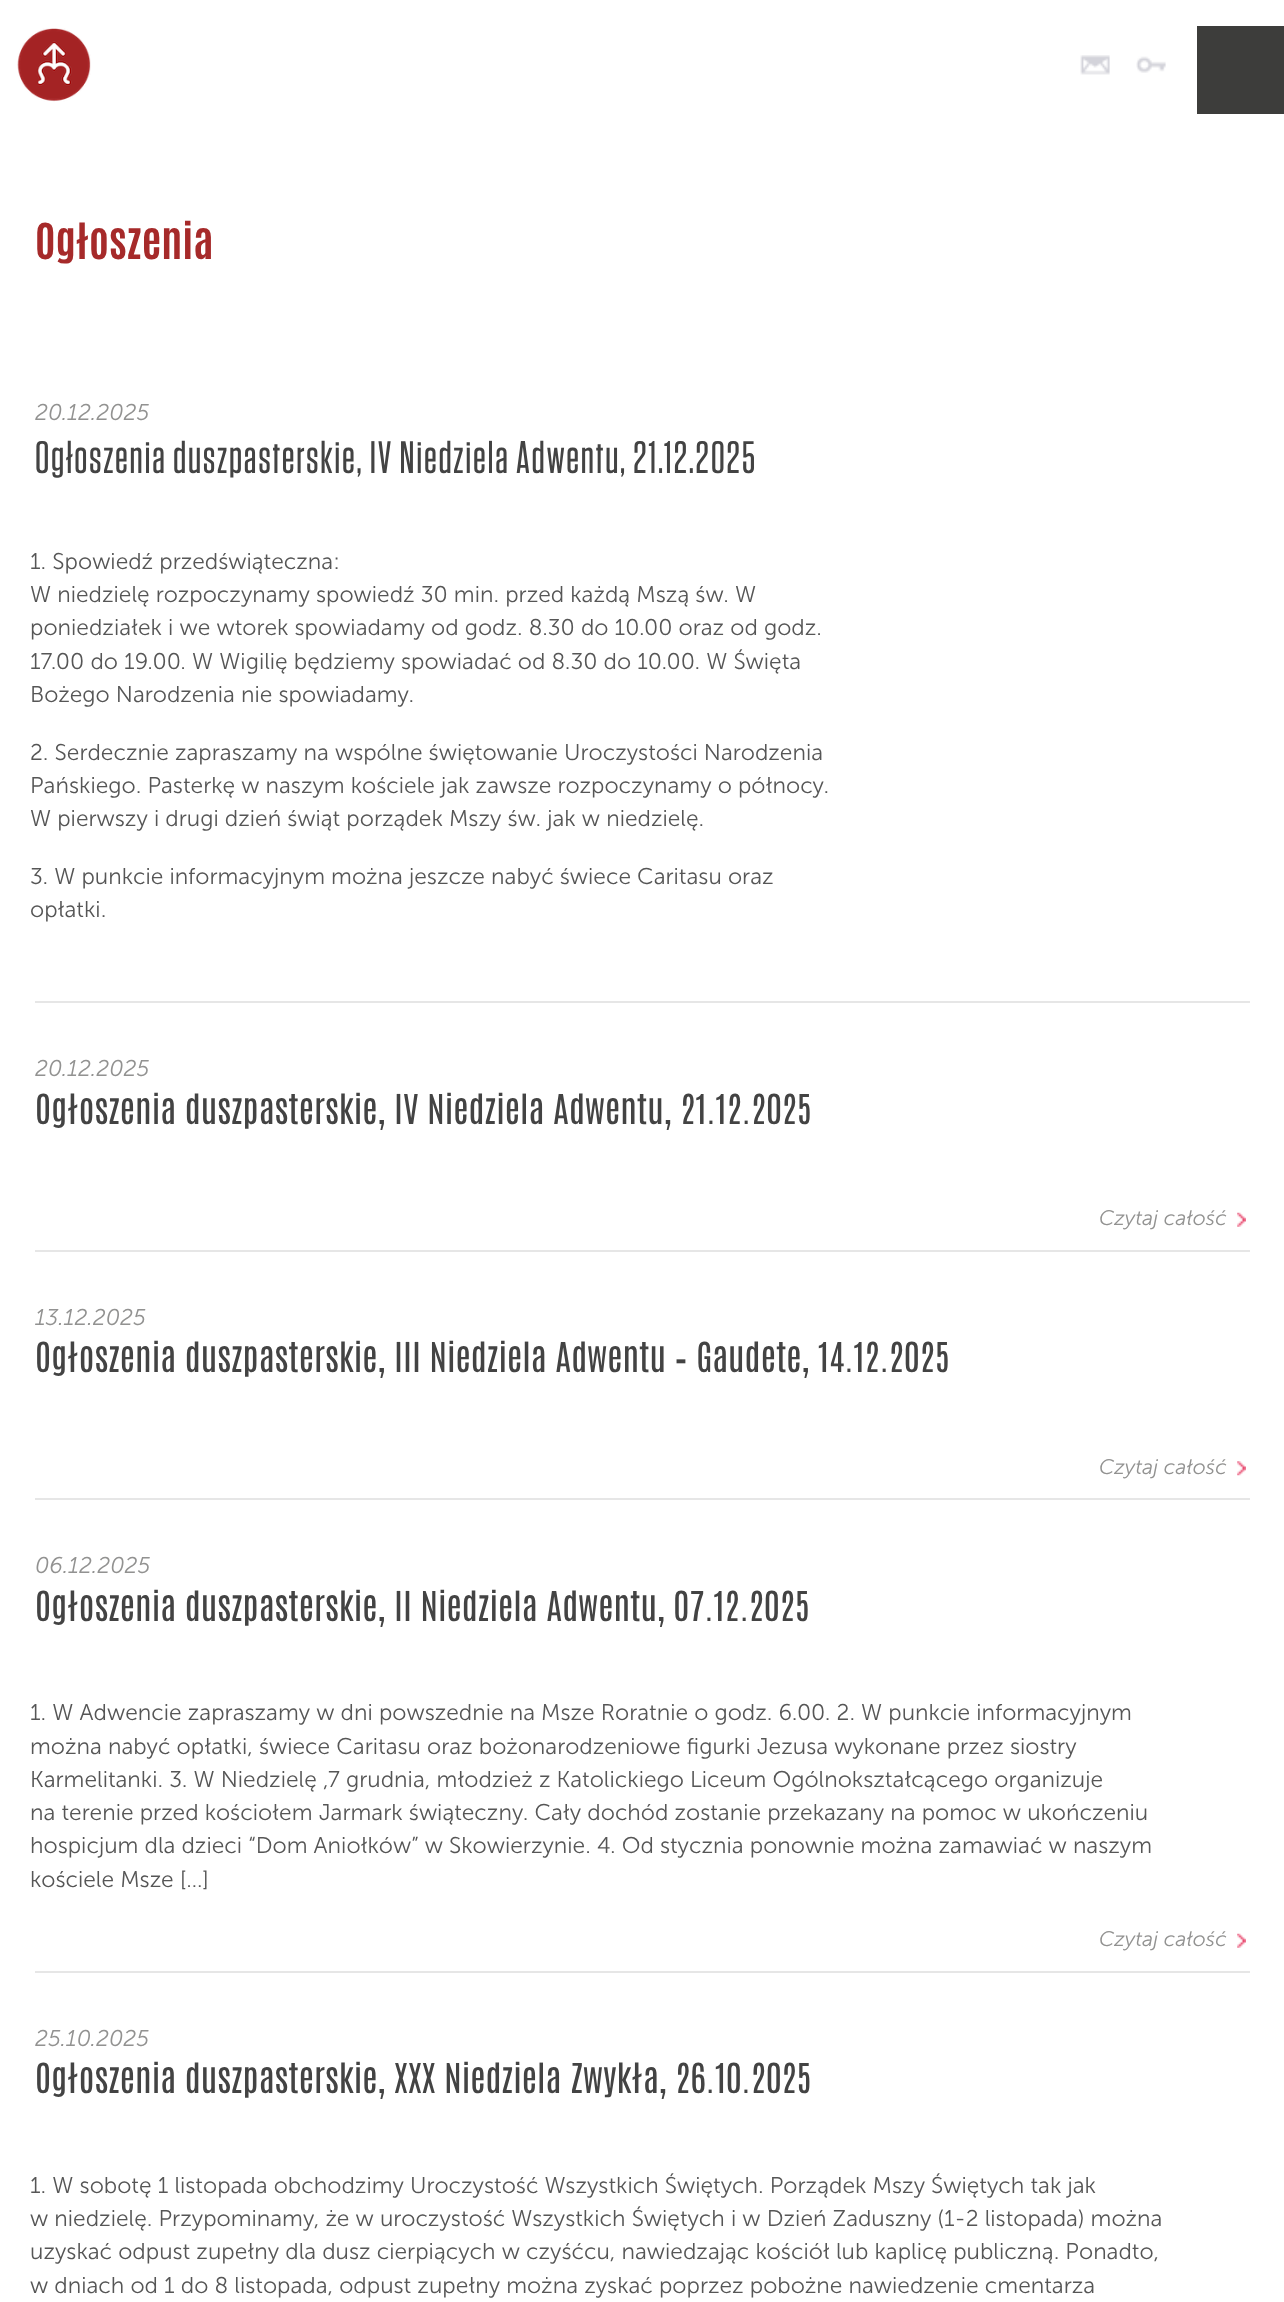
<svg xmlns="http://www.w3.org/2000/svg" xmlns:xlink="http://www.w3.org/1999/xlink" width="1284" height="2302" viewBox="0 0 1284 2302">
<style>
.cls-1{font:bold 42px Antonio;fill:#a62a2a}
.cls-2{font:22.75px 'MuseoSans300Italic';fill:#929291}
.cls-3{font:500 45.5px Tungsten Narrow;letter-spacing:1.75px;fill:#434343}
.cls-4{font:22.75px 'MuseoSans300';fill:#565656}
.cls-5{font:35px Antonio;fill:#434343}
.cls-6{font:21px 'MuseoSans300Italic';fill:#929291}
</style>
<rect width="100%" height="100%" fill="#ffffff"/>
<image xlink:href="image0.png" x="17" y="28" width="74" height="74"/>
<image xlink:href="image1.png" x="1080" y="55" width="30" height="20"/>
<image xlink:href="image2.png" x="1136" y="56" width="30" height="17"/>
<rect fill="#3d3d3b" x="1197" y="26" width="87" height="88"/>
<rect fill="#e6e6e6" x="35" y="1001" width="1215" height="2"/>
<rect fill="#e6e6e6" x="35" y="1250" width="1215" height="2"/>
<image xlink:href="image3.png" x="1237" y="1212" width="9" height="15"/>
<rect fill="#e6e6e6" x="35" y="1498" width="1215" height="2"/>
<image xlink:href="image4.png" x="1237" y="1461" width="9" height="15"/>
<rect fill="#e6e6e6" x="35" y="1971" width="1215" height="2"/>
<image xlink:href="image3.png" x="1237" y="1933" width="9" height="15"/>
<text class="cls-1" x="35" y="259">Ogłoszenia</text>
<text class="cls-2" x="35" y="420">20.12.2025</text>
<text class="cls-3" x="35" y="473">Ogłoszenia duszpasterskie, IV Niedziela Adwentu, 21.12.2025</text>
<text class="cls-4"><tspan x="30" y="569">1. Spowiedź przedświąteczna:</tspan><tspan x="30" y="602">W niedzielę rozpoczynamy spowiedź 30 min. przed każdą Mszą św. W</tspan><tspan x="30" y="635">poniedziałek i we wtorek spowiadamy od godz. 8.30 do 10.00 oraz od godz.</tspan><tspan x="30" y="669">17.00 do 19.00. W Wigilię będziemy spowiadać od 8.30 do 10.00. W Święta</tspan><tspan x="30" y="702">Bożego Narodzenia nie spowiadamy.</tspan></text>
<text class="cls-4"><tspan x="30" y="760">2. Serdecznie zapraszamy na wspólne świętowanie Uroczystości Narodzenia</tspan><tspan x="30" y="793">Pańskiego. Pasterkę w naszym kościele jak zawsze rozpoczynamy o północy.</tspan><tspan x="30" y="826">W pierwszy i drugi dzień świąt porządek Mszy św. jak w niedzielę.</tspan></text>
<text class="cls-4"><tspan x="30" y="884">3. W punkcie informacyjnym można jeszcze nabyć świece Caritasu oraz</tspan><tspan x="30" y="917">opłatki.</tspan></text>
<text class="cls-2" x="35" y="1076">20.12.2025</text>
<text class="cls-5" x="35" y="1124">Ogłoszenia duszpasterskie, IV Niedziela Adwentu, 21.12.2025</text>
<text class="cls-6" x="1099" y="1225">Czytaj całość</text>
<text class="cls-2" x="35" y="1325">13.12.2025</text>
<text class="cls-5" x="35" y="1372">Ogłoszenia duszpasterskie, III Niedziela Adwentu – Gaudete, 14.12.2025</text>
<text class="cls-6" x="1099" y="1474">Czytaj całość</text>
<text class="cls-2" x="35" y="1573">06.12.2025</text>
<text class="cls-5" x="35" y="1621">Ogłoszenia duszpasterskie, II Niedziela Adwentu, 07.12.2025</text>
<text class="cls-4"><tspan x="30" y="1720">1. W Adwencie zapraszamy w dni powszednie na Msze Roratnie o godz. 6.00. 2. W punkcie informacyjnym</tspan><tspan x="30" y="1754">można nabyć opłatki, świece Caritasu oraz bożonarodzeniowe figurki Jezusa wykonane przez siostry</tspan><tspan x="30" y="1787">Karmelitanki. 3. W Niedzielę ,7 grudnia, młodzież z Katolickiego Liceum Ogólnokształcącego organizuje</tspan><tspan x="30" y="1820">na terenie przed kościołem Jarmark świąteczny. Cały dochód zostanie przekazany na pomoc w ukończeniu</tspan><tspan x="30" y="1853">hospicjum dla dzieci “Dom Aniołków” w Skowierzynie. 4. Od stycznia ponownie można zamawiać w naszym</tspan><tspan x="30" y="1887">kościele Msze […]</tspan></text>
<text class="cls-6" x="1099" y="1946">Czytaj całość</text>
<text class="cls-2" x="35" y="2046">25.10.2025</text>
<text class="cls-5" x="35" y="2093">Ogłoszenia duszpasterskie, XXX Niedziela Zwykła, 26.10.2025</text>
<text class="cls-4"><tspan x="30" y="2193">1. W sobotę 1 listopada obchodzimy Uroczystość Wszystkich Świętych. Porządek Mszy Świętych tak jak</tspan><tspan x="30" y="2226">w niedzielę. Przypominamy, że w uroczystość Wszystkich Świętych i w Dzień Zaduszny (1-2 listopada) można</tspan><tspan x="30" y="2259">uzyskać odpust zupełny dla dusz cierpiących w czyśćcu, nawiedzając kościół lub kaplicę publiczną. Ponadto,</tspan><tspan x="30" y="2293">w dniach od 1 do 8 listopada, odpust zupełny można zyskać poprzez pobożne nawiedzenie cmentarza</tspan></text>
</svg>
